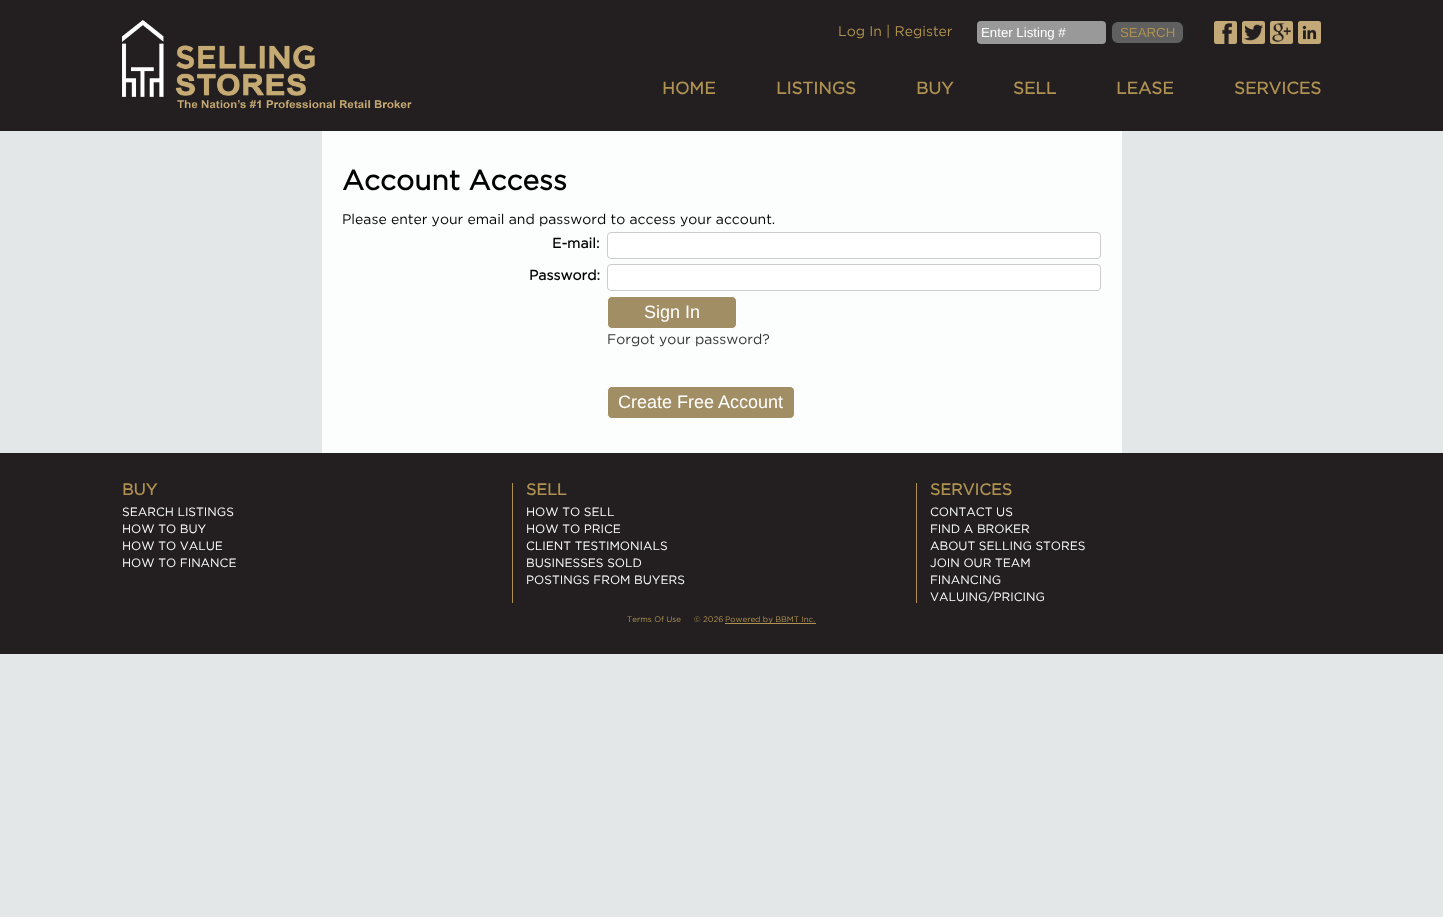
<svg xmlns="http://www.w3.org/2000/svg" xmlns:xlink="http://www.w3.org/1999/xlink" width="1443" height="917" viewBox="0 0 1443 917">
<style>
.cls-1{font:14px Gotham;fill:#af9251}
.cls-2{font:13.25px Liberation Sans;fill:#ffffff}
.cls-3{font:13.25px Liberation Sans;fill:#af9251}
.cls-4{font:bold 17px Gotham;fill:#af9251}
.cls-5{font:bold 28px Gotham;fill:#000000}
.cls-6{font:14px Gotham;fill:#000000}
.cls-7{font:bold 14px Gotham;fill:#000000}
.cls-8{font:18px Liberation Sans;fill:#ffffff}
.cls-9{font:14px Gotham;fill:#333333}
.cls-10{font:bold 16px Gotham;fill:#af9251}
.cls-11{font:12px Gotham;fill:#ffffff}
.cls-12{font:8px Gotham;fill:#af9251}
</style>
<rect width="100%" height="100%" fill="#e3e7e7"/>
<rect fill="#231f20" x="0" y="0" width="1443" height="131"/>
<image xlink:href="image0.png" x="122" y="20" width="290" height="89"/>
<rect fill="#999999" x="977" y="21" width="129" height="23" rx="4"/>
<rect fill="#606060" stroke="#222222" stroke-width="2" x="1111" y="21" width="73" height="23" rx="7"/>
<image xlink:href="image1.png" x="1214" y="21" width="23" height="23"/>
<image xlink:href="image2.png" x="1242" y="21" width="23" height="23"/>
<image xlink:href="image3.png" x="1270" y="21" width="23" height="23"/>
<image xlink:href="image4.png" x="1298" y="21" width="23" height="23"/>
<rect fill="#fcfdfd" x="322" y="131" width="800" height="322"/>
<rect fill="#ffffff" stroke="#cccccc" x="607.5" y="232.5" width="493" height="26" rx="3.5"/>
<rect fill="#ffffff" stroke="#cccccc" x="607.5" y="264.5" width="493" height="26" rx="3.5"/>
<rect fill="#a28e64" stroke="#ffffff" x="607.5" y="296.5" width="129" height="32" rx="4.5"/>
<rect fill="#a28e64" stroke="#ffffff" x="607.5" y="386.5" width="187" height="32" rx="4.5"/>
<rect fill="#231f20" x="0" y="453" width="1443" height="201"/>
<rect fill="#af9251" x="512" y="483" width="1" height="120"/>
<rect fill="#af9251" x="916" y="483" width="1" height="120"/>
<rect fill="#af9251" x="725" y="623" width="91" height="1"/>
<text class="cls-1" x="838" y="36">Log In | Register</text>
<text class="cls-2" x="981" y="37">Enter Listing #</text>
<text class="cls-3" x="1120" y="37">SEARCH</text>
<text class="cls-4" x="662" y="94">HOME</text>
<text class="cls-4" x="776" y="94">LISTINGS</text>
<text class="cls-4" x="916" y="94">BUY</text>
<text class="cls-4" x="1013" y="94">SELL</text>
<text class="cls-4" x="1116" y="94">LEASE</text>
<text class="cls-4" x="1234" y="94">SERVICES</text>
<text class="cls-5" x="342" y="190">Account Access</text>
<text class="cls-6" x="342" y="224">Please enter your email and password to access your account.</text>
<text class="cls-7" x="552" y="248">E-mail:</text>
<text class="cls-7" x="529" y="280">Password:</text>
<text class="cls-8" x="644" y="318">Sign In</text>
<text class="cls-9" x="607" y="344">Forgot your password?</text>
<text class="cls-8" x="618" y="408">Create Free Account</text>
<text class="cls-10" x="122" y="495">BUY</text>
<text class="cls-11"><tspan x="122" y="516">SEARCH LISTINGS</tspan><tspan x="122" y="533">HOW TO BUY</tspan><tspan x="122" y="550">HOW TO VALUE</tspan><tspan x="122" y="567">HOW TO FINANCE</tspan></text>
<text class="cls-10" x="526" y="495">SELL</text>
<text class="cls-11"><tspan x="526" y="516">HOW TO SELL</tspan><tspan x="526" y="533">HOW TO PRICE</tspan><tspan x="526" y="550">CLIENT TESTIMONIALS</tspan><tspan x="526" y="567">BUSINESSES SOLD</tspan><tspan x="526" y="584">POSTINGS FROM BUYERS</tspan></text>
<text class="cls-10" x="930" y="495">SERVICES</text>
<text class="cls-11"><tspan x="930" y="516">CONTACT US</tspan><tspan x="930" y="533">FIND A BROKER</tspan><tspan x="930" y="550">ABOUT SELLING STORES</tspan><tspan x="930" y="567">JOIN OUR TEAM</tspan><tspan x="930" y="584">FINANCING</tspan><tspan x="930" y="601">VALUING/PRICING</tspan></text>
<text class="cls-12" x="627" y="622">Terms Of Use</text>
<text class="cls-12" x="694" y="622">© 2026</text>
<text class="cls-12" x="725" y="622">Powered by BBMT Inc.</text>
</svg>
